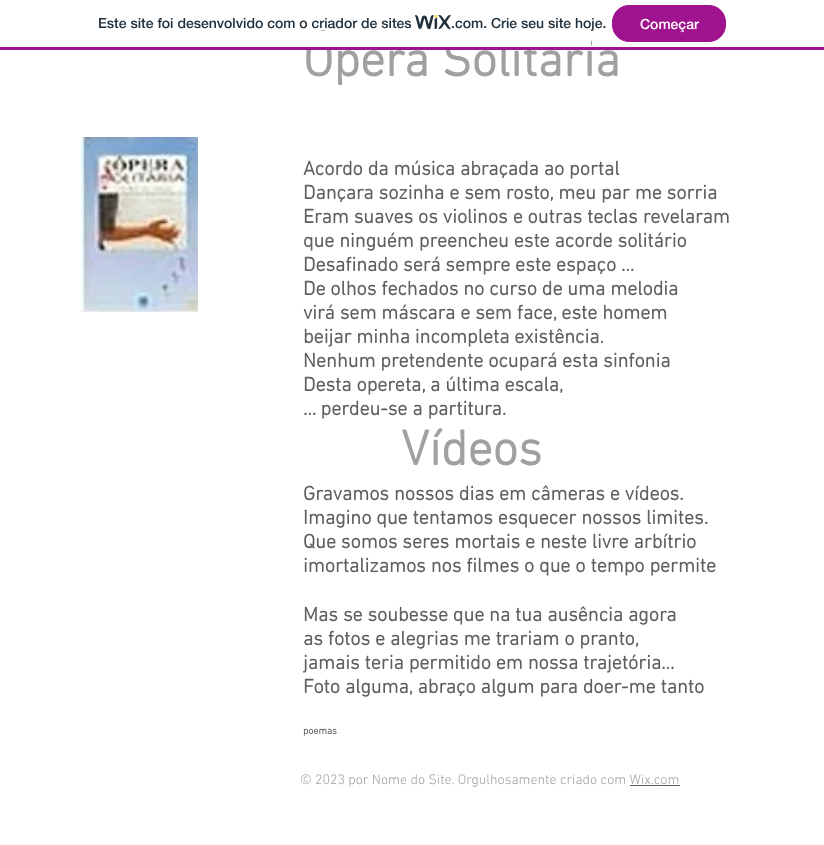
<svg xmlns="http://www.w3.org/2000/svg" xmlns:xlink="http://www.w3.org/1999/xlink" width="824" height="845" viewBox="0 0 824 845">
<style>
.cls-1{font:500 14px 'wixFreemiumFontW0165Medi';fill:#20303c}
.cls-2{font:bold 50px 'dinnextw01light';fill:#a0a09f}
.cls-3{font:500 14px 'wixFreemiumFontW0165Medi';fill:#ffffff}
.cls-4{font:bold 20px 'dinnextw01light';fill:#605e5e}
.cls-5{font:bold 10px 'dinnextw01light';fill:#605e5e}
.cls-6{font:300 14px 'dinnextw01light';fill:#a0a09f}
</style>
<rect width="100%" height="100%" fill="#ffffff"/>
<image xlink:href="image0.png" x="415" y="15" width="36" height="15"/>
<image xlink:href="image1.png" x="81" y="137" width="117" height="175"/>
<text class="cls-1" x="98" y="28">Este site foi desenvolvido com o criador de sites</text>
<text class="cls-1" x="451" y="28">.com. Crie seu site hoje.</text>
<text class="cls-2" x="303" y="76">Ópera Solitária</text>
<rect fill="#a0138e" stroke="#a0138e" x="612.5" y="5.5" width="113" height="36" rx="16.5"/>
<text class="cls-3" x="640" y="29">Começar</text>
<rect fill="#a0138e" x="0" y="47" width="824" height="3"/>
<rect fill="#ffffff" x="308" y="31" width="283" height="16"/>
<text class="cls-4"><tspan x="303" y="175">Acordo da música abraçada ao portal</tspan><tspan x="303" y="199">Dançara sozinha e sem rosto, meu par me sorria</tspan><tspan x="303" y="223">Eram suaves os violinos e outras teclas revelaram</tspan><tspan x="303" y="247">que ninguém preencheu este acorde solitário</tspan><tspan x="303" y="271">Desafinado será sempre este espaço ...</tspan><tspan x="303" y="295">De olhos fechados no curso de uma melodia</tspan><tspan x="303" y="319">virá sem máscara e sem face, este homem</tspan><tspan x="303" y="343">beijar minha incompleta existência.</tspan><tspan x="303" y="367">Nenhum pretendente ocupará esta sinfonia</tspan><tspan x="303" y="391">Desta opereta, a última escala,</tspan><tspan x="303" y="415">... perdeu-se a partitura.</tspan></text>
<text class="cls-2" x="401" y="465">Vídeos</text>
<text class="cls-4"><tspan x="303" y="500">Gravamos nossos dias em câmeras e vídeos.</tspan><tspan x="303" y="524">Imagino que tentamos esquecer nossos limites.</tspan><tspan x="303" y="548">Que somos seres mortais e neste livre arbítrio</tspan><tspan x="303" y="572">imortalizamos nos filmes o que o tempo permite</tspan></text>
<text class="cls-4"><tspan x="303" y="621">Mas se soubesse que na tua ausência agora</tspan><tspan x="303" y="645">as fotos e alegrias me trariam o pranto,</tspan><tspan x="303" y="669">jamais teria permitido em nossa trajetória...</tspan><tspan x="303" y="693">Foto alguma, abraço algum para doer-me tanto</tspan></text>
<text class="cls-5" x="303" y="734">poemas</text>
<text class="cls-6" x="300" y="784">© 2023 por Nome do Site. Orgulhosamente criado com Wix.com</text>
<rect fill="#605e5e" x="630" y="785" width="50" height="1"/>
</svg>
